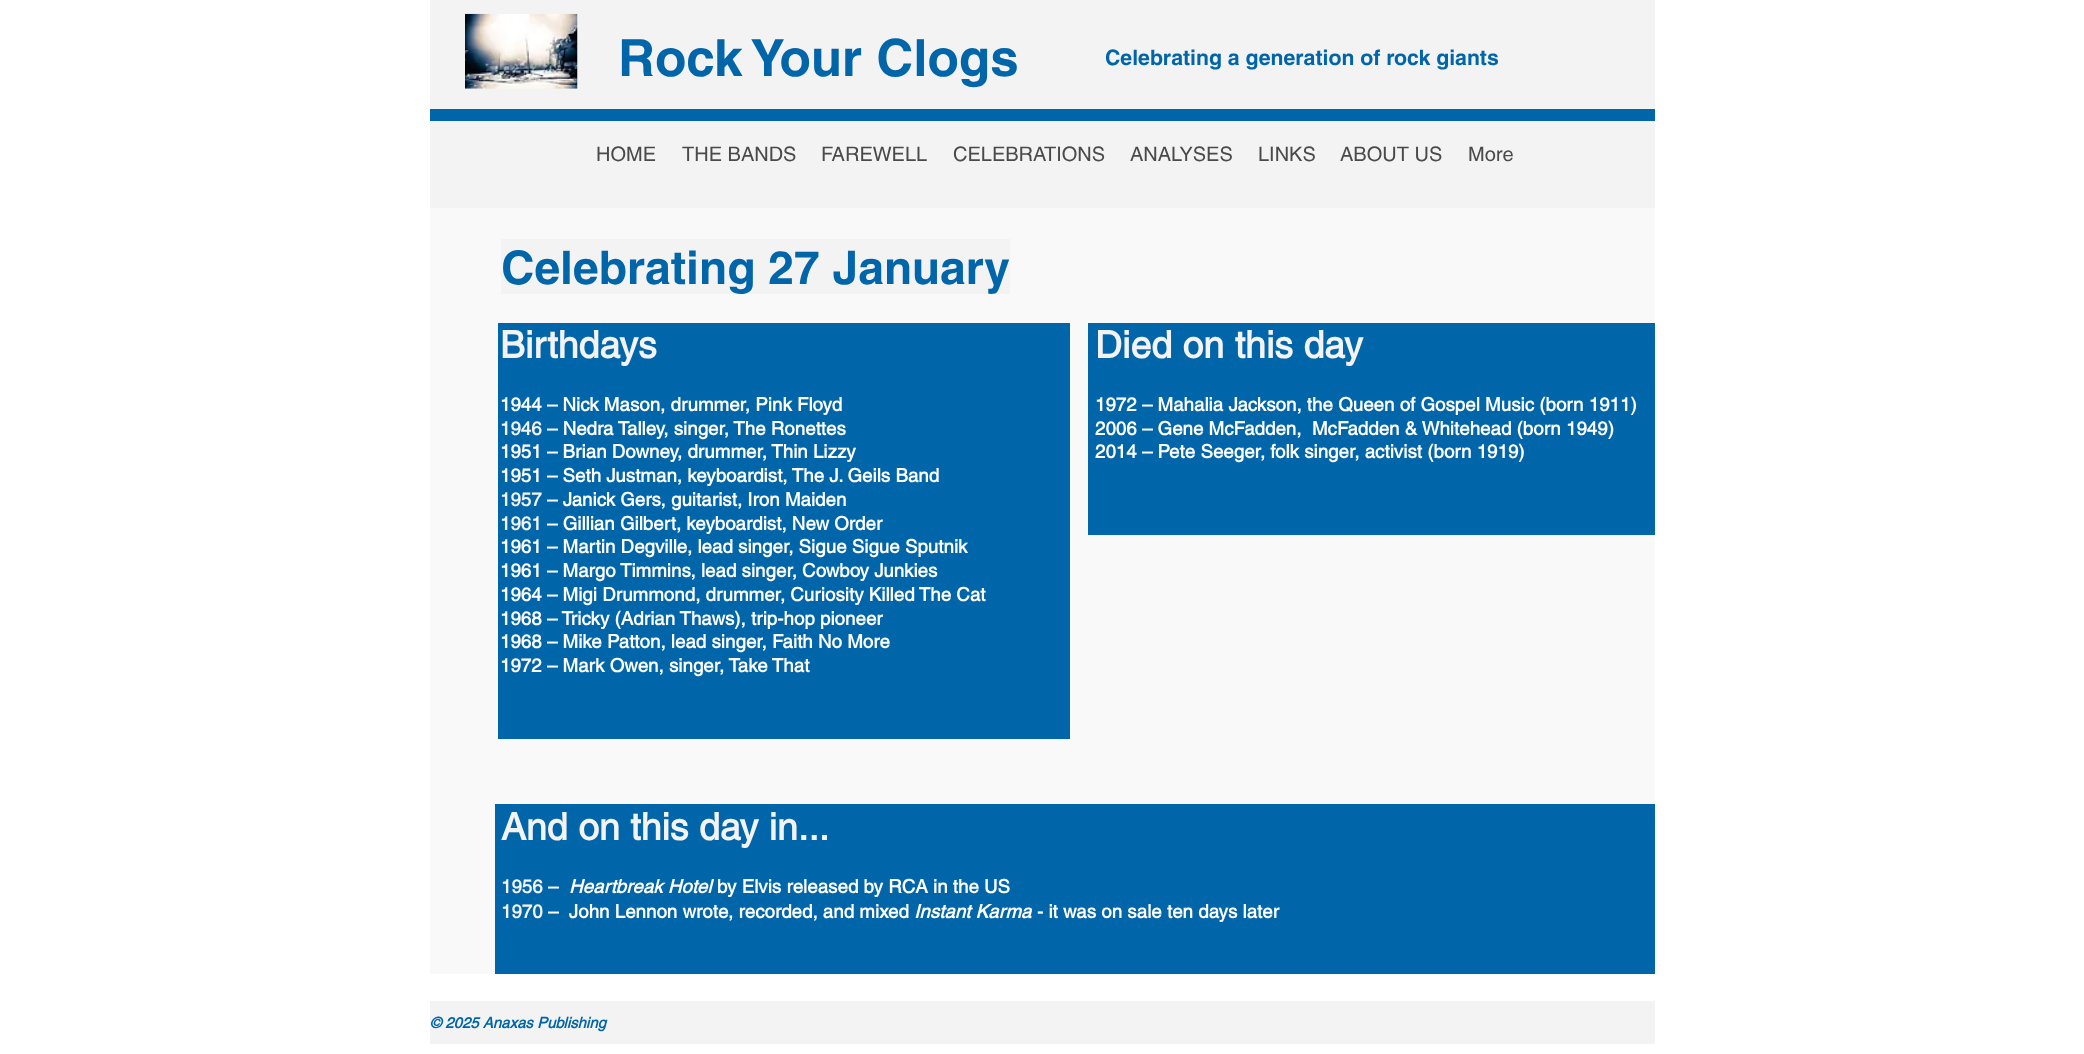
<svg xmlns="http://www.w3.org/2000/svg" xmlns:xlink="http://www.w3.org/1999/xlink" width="2084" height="1054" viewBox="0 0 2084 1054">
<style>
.cls-1{font:bold 51.25px helvetica;fill:#0065a9}
.cls-2{font:bold 21.25px helvetica;fill:#0065a9}
.cls-3{font:20px helvetica;fill:#4a4a4a}
.cls-4{font:bold 46.25px helvetica;fill:#0065a9}
.cls-5{font:bold 37.5px 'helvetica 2';fill:#f3f3f3}
.cls-6{font:bold 18.75px 'helvetica 2';fill:#ffffff}
.cls-7{font:bold 18.75px 'helvetica 2';fill:#f3f3f3}
.cls-8{font:italic bold 18.75px helvetica;fill:#ffffff}
.cls-9{font:italic bold 15px helvetica;fill:#0065a9}
</style>
<rect width="100%" height="100%" fill="#ffffff"/>
<rect fill="#f3f3f3" x="430" y="0" width="1225" height="208"/>
<image xlink:href="image0.png" x="465" y="13" width="113" height="76"/>
<rect fill="#0065a9" x="430" y="109" width="1225" height="12"/>
<rect fill="#f9f9f9" x="430" y="208" width="1225" height="766"/>
<rect fill="#f3f3f3" x="501" y="239" width="509" height="55"/>
<rect fill="#0065a9" x="498" y="323" width="572" height="416"/>
<rect fill="#0065a9" x="1088" y="323" width="567" height="212"/>
<rect fill="#0065a9" x="495" y="804" width="1160" height="170"/>
<rect fill="#f3f3f3" x="430" y="1001" width="1225" height="43"/>
<text class="cls-1" x="618" y="76">Rock Your Clogs</text>
<text class="cls-2" x="1105" y="65">Celebrating a generation of rock giants</text>
<text class="cls-3" x="596" y="161">HOME</text>
<text class="cls-3" x="682" y="161">THE BANDS</text>
<text class="cls-3" x="821" y="161">FAREWELL</text>
<text class="cls-3" x="953" y="161">CELEBRATIONS</text>
<text class="cls-3" x="1130" y="161">ANALYSES</text>
<text class="cls-3" x="1258" y="161">LINKS</text>
<text class="cls-3" x="1340" y="161">ABOUT US</text>
<text class="cls-3" x="1468" y="161">More</text>
<text class="cls-4" x="501" y="284">Celebrating 27 January</text>
<text class="cls-5" x="500" y="358">Birthdays</text>
<text class="cls-6" x="500" y="411">1944 – Nick Mason, drummer, Pink Floyd</text>
<text class="cls-7" x="500" y="435">1946</text>
<text class="cls-6" x="547" y="435">– Nedra Talley, singer, The Ronettes</text>
<text class="cls-6"><tspan x="500" y="458">1951 – Brian Downey, drummer, Thin Lizzy</tspan><tspan x="500" y="482">1951 – Seth Justman, keyboardist, The J. Geils Band</tspan></text>
<text class="cls-7" x="500" y="506">1957</text>
<text class="cls-6" x="547" y="506">– Janick Gers, guitarist, Iron Maiden</text>
<text class="cls-7" x="500" y="530">1961</text>
<text class="cls-6" x="547" y="530">– Gillian Gilbert, keyboardist, New Order</text>
<text class="cls-6"><tspan x="500" y="553">1961 – Martin Degville, lead singer, Sigue Sigue Sputnik</tspan><tspan x="500" y="577">1961 – Margo Timmins, lead singer, Cowboy Junkies</tspan><tspan x="500" y="601">1964 – Migi Drummond, drummer, Curiosity Killed The Cat</tspan><tspan x="500" y="625">1968 – Tricky (Adrian Thaws), trip-hop pioneer</tspan><tspan x="500" y="648">1968 – Mike Patton, lead singer, Faith No More</tspan><tspan x="500" y="672">1972 – Mark Owen, singer, Take That</tspan></text>
<text class="cls-5" x="1095" y="358">Died on this day</text>
<text class="cls-6" xml:space="preserve"><tspan x="1095" y="411">1972 – Mahalia Jackson, the Queen of Gospel Music (born 1911)</tspan><tspan x="1095" y="435">2006 – Gene McFadden,  McFadden &amp; Whitehead (born 1949)</tspan><tspan x="1095" y="458">2014 – Pete Seeger, folk singer, activist (born 1919)</tspan></text>
<text class="cls-5" x="501" y="840">And on this day in...</text>
<text class="cls-7" x="501" y="893">1956</text>
<text class="cls-6" x="548" y="893">–</text>
<text class="cls-8" x="569" y="893">Heartbreak Hotel</text>
<text class="cls-6" x="717" y="893">by Elvis released by RCA in the US</text>
<text class="cls-7" x="501" y="918">1970</text>
<text class="cls-6" xml:space="preserve" x="548" y="918">–  John Lennon wrote, recorded, and mixed</text>
<text class="cls-8" x="914" y="918">Instant Karma</text>
<text class="cls-6" x="1037" y="918">- it was on sale ten days later</text>
<text class="cls-9" x="430" y="1028">© 2025 Anaxas Publishing</text>
</svg>
